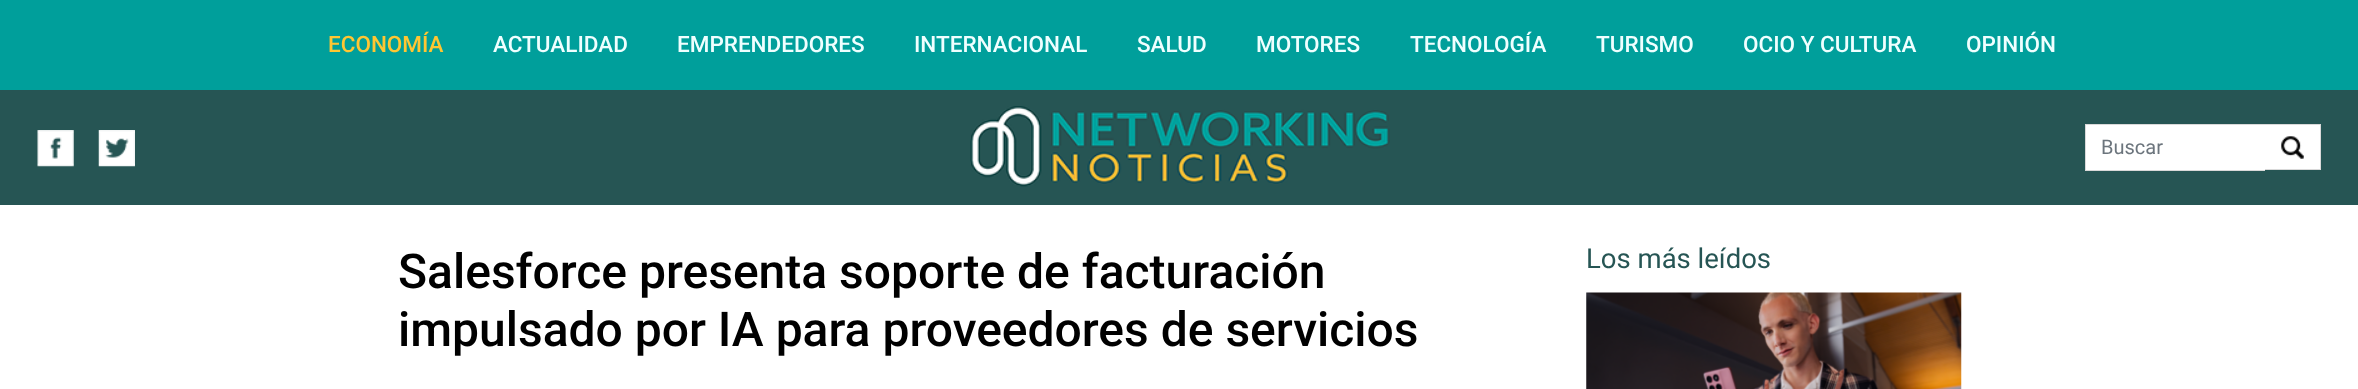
<svg xmlns="http://www.w3.org/2000/svg" xmlns:xlink="http://www.w3.org/1999/xlink" width="2358" height="389" viewBox="0 0 2358 389">
<style>
.cls-1{font:500 22.5px Roboto;fill:#ffc632}
.cls-2{font:500 22.5px Roboto;fill:#efffff}
.cls-3{font:20px Roboto;fill:#6c757d}
.cls-4{font:500 48px Roboto;fill:#000000}
.cls-5{font:27.5px Roboto;fill:#265554}
</style>
<rect width="100%" height="100%" fill="#ffffff"/>
<rect fill="#265554" x="0" y="90" width="2358" height="115"/>
<rect fill="#009f9b" x="0" y="0" width="2358" height="90"/>
<image xlink:href="image0.png" x="37" y="130" width="37" height="37"/>
<image xlink:href="image1.png" x="98" y="130" width="37" height="37"/>
<image xlink:href="image2.png" x="970" y="106" width="420" height="81"/>
<rect fill="#ffffff" x="2085" y="124" width="180" height="47"/>
<path fill="#d9d9d9" d="M2085 124H2265V125H2086Z"/>
<path fill="#d9d9d9" d="M2265 171H2085L2086 170H2265Z"/>
<path fill="#000000" fill-opacity="0.15" d="M2085 171V124L2086 125V170Z"/>
<rect fill="#ffffff" x="2265" y="124" width="56" height="46"/>
<path fill="#d9d9d9" d="M2265 124H2321L2320 125H2265Z"/>
<path fill="#000000" fill-opacity="0.15" d="M2321 124V170L2320 169V125Z"/>
<path fill="#000000" fill-opacity="0.15" d="M2321 170H2265V169H2320Z"/>
<image xlink:href="image3.png" x="2281" y="136" width="23" height="23"/>
<image xlink:href="image4.png" x="1586" y="292" width="376" height="97"/>
<text class="cls-1" x="328" y="52">ECONOMÍA</text>
<text class="cls-2" x="493" y="52">ACTUALIDAD</text>
<text class="cls-2" x="677" y="52">EMPRENDEDORES</text>
<text class="cls-2" x="914" y="52">INTERNACIONAL</text>
<text class="cls-2" x="1137" y="52">SALUD</text>
<text class="cls-2" x="1256" y="52">MOTORES</text>
<text class="cls-2" x="1410" y="52">TECNOLOGÍA</text>
<text class="cls-2" x="1596" y="52">TURISMO</text>
<text class="cls-2" x="1743" y="52">OCIO Y CULTURA</text>
<text class="cls-2" x="1966" y="52">OPINIÓN</text>
<text class="cls-3" x="2101" y="154">Buscar</text>
<text class="cls-4"><tspan x="398" y="288">Salesforce presenta soporte de facturación</tspan><tspan x="398" y="346">impulsado por IA para proveedores de servicios</tspan></text>
<text class="cls-5" x="1586" y="268">Los más leídos</text>
</svg>
